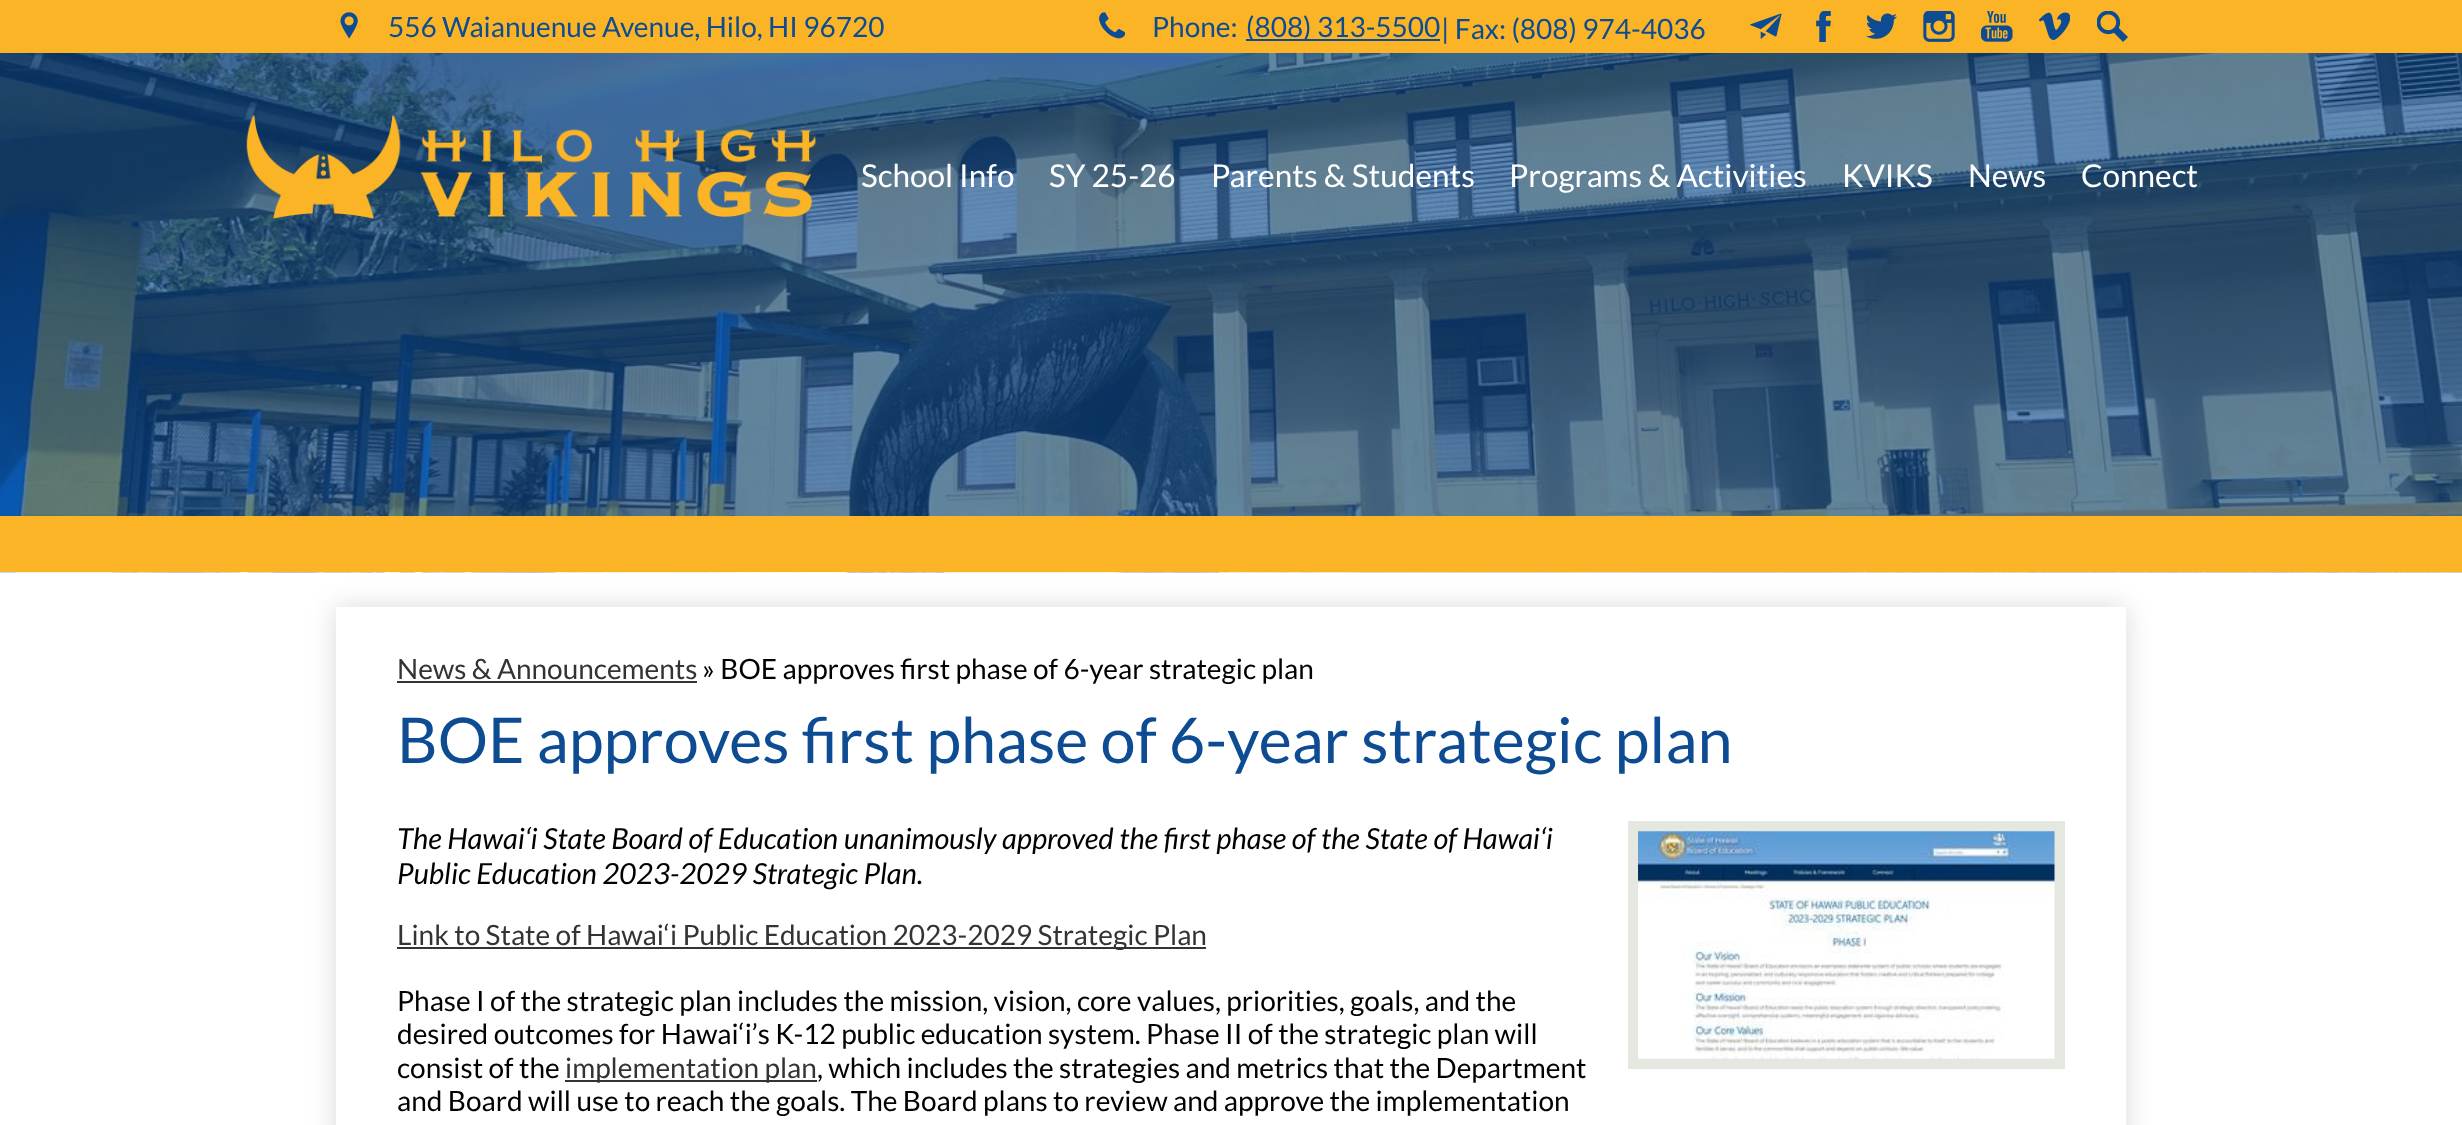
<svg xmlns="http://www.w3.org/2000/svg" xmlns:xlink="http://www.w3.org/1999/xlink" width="2462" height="1125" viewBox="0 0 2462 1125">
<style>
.cls-1{font:28px Lato;fill:#0d4c92}
.cls-2{font:31.5px Lato;fill:#ffffff}
.cls-3{font:28px Lato;fill:#333333}
.cls-4{font:28px Lato;fill:#000000}
.cls-5{font:63px Lato;fill:#0d4c92}
.cls-6{font:italic 29.15px Lato;fill:#000000}
</style>
<rect width="100%" height="100%" fill="#ffffff"/>
<rect fill="#fcb427" x="0" y="0" width="2462" height="53"/>
<image xlink:href="image0.png" x="340" y="12" width="18" height="27"/>
<image xlink:href="image1.png" x="1099" y="12" width="26" height="27"/>
<rect fill="#0d4c92" x="1246" y="39" width="194" height="2"/>
<image xlink:href="image2.png" x="1750" y="13" width="32" height="26"/>
<image xlink:href="image3.png" x="1816" y="11" width="15" height="31"/>
<image xlink:href="image4.png" x="1866" y="13" width="31" height="26"/>
<image xlink:href="image5.png" x="1923" y="11" width="32" height="31"/>
<image xlink:href="image6.png" x="1981" y="11" width="32" height="31"/>
<image xlink:href="image7.png" x="2039" y="12" width="31" height="28"/>
<image xlink:href="image8.png" x="2097" y="11" width="31" height="31"/>
<image xlink:href="image10.png" x="0" y="53" width="2462" height="520"/>
<image xlink:href="image9.png" x="246" y="115" width="570" height="104"/>
<rect fill="#fcb427" x="0" y="516" width="2462" height="56"/>
<rect fill="#000000" fill-opacity="0.15" filter="blur(13px)" x="336" y="607" width="1790" height="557"/>
<rect fill="#ffffff" x="336" y="607" width="1790" height="518"/>
<rect fill="#333333" x="397" y="681" width="300" height="2"/>
<rect fill="#333333" x="397" y="947" width="809" height="2"/>
<rect fill="#333333" x="565" y="1080" width="252" height="2"/>
<rect fill="none" stroke="#e5e7e1" stroke-width="11" x="1633.5" y="826.5" width="426" height="237"/>
<image xlink:href="image11.png" x="1638" y="831" width="417" height="228"/>
<text class="cls-1" x="388" y="37">556 Waianuenue Avenue, Hilo, HI 96720</text>
<text class="cls-1" x="1152" y="37">Phone:</text>
<text class="cls-1" x="1246" y="37">(808) 313-5500</text>
<text class="cls-1" x="1441" y="39">| Fax: (808) 974-4036</text>
<text class="cls-2" x="861" y="187">School Info</text>
<text class="cls-2" x="1049" y="187">SY 25-26</text>
<text class="cls-2" x="1211" y="187">Parents &amp; Students</text>
<text class="cls-2" x="1509" y="187">Programs &amp; Activities</text>
<text class="cls-2" x="1842" y="187">KVIKS</text>
<text class="cls-2" x="1968" y="187">News</text>
<text class="cls-2" x="2081" y="187">Connect</text>
<text class="cls-3" x="397" y="679">News &amp; Announcements</text>
<text class="cls-4" x="702" y="679">» BOE approves first phase of 6-year strategic plan</text>
<text class="cls-5" x="397" y="763">BOE approves first phase of 6-year strategic plan</text>
<text class="cls-6"><tspan x="397" y="849">The Hawai‘i State Board of Education unanimously approved the first phase of the State of Hawai‘i</tspan><tspan x="397" y="884">Public Education 2023-2029 Strategic Plan.</tspan></text>
<text class="cls-3" x="397" y="945">Link to State of Hawai‘i Public Education 2023-2029 Strategic Plan</text>
<text class="cls-4"><tspan x="397" y="1011">Phase I of the strategic plan includes the mission, vision, core values, priorities, goals, and the</tspan><tspan x="397" y="1044">desired outcomes for Hawai‘i’s K-12 public education system. Phase II of the strategic plan will</tspan><tspan x="397" y="1078">consist of the</tspan></text>
<text class="cls-3" x="565" y="1078">implementation plan</text>
<text class="cls-4" x="817" y="1078">, which includes the strategies and metrics that the Department</text>
<text class="cls-4" x="397" y="1111">and Board will use to reach the goals. The Board plans to review and approve the implementation</text>
</svg>
